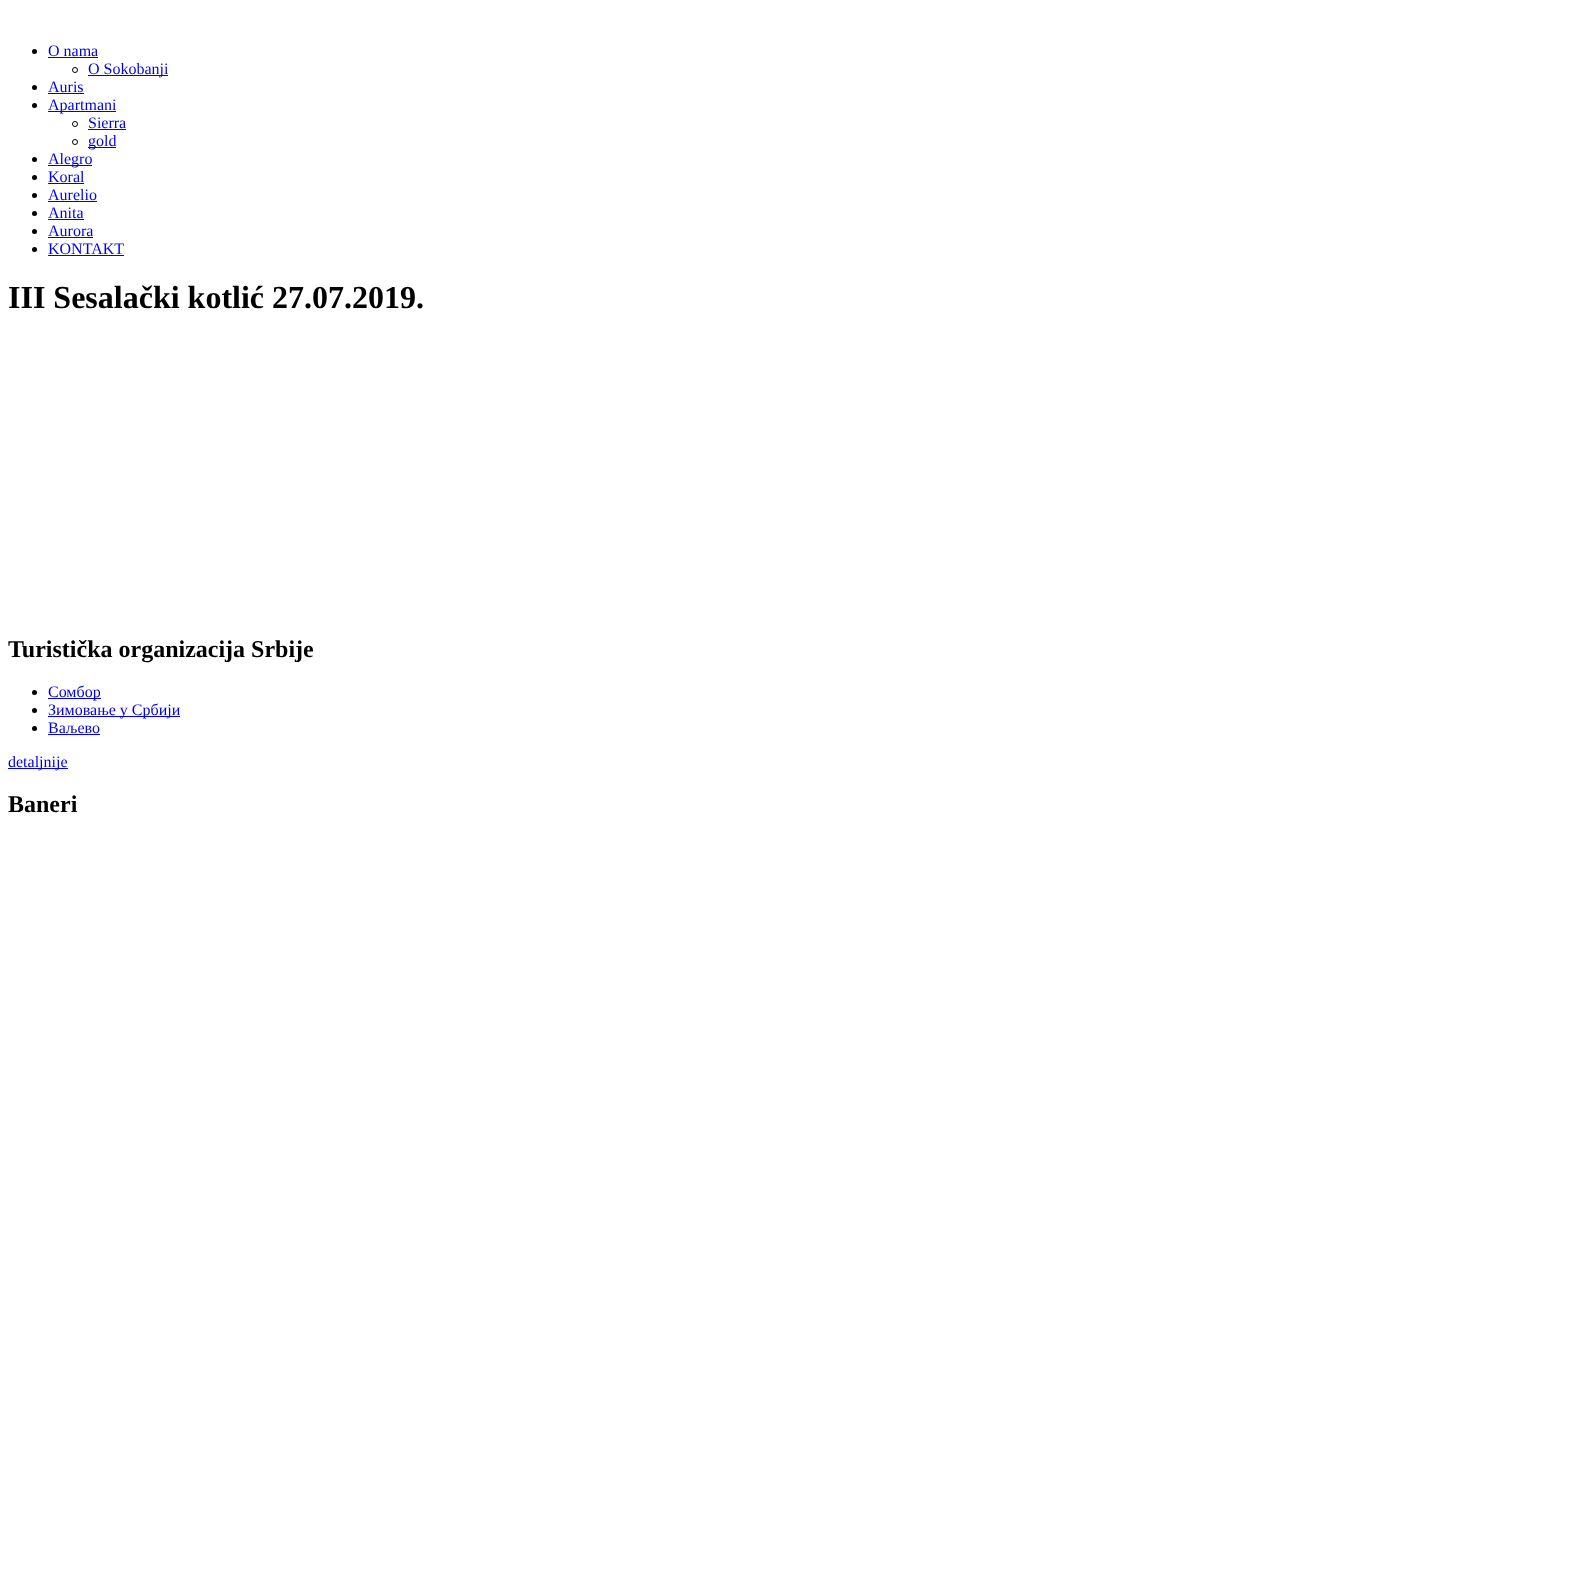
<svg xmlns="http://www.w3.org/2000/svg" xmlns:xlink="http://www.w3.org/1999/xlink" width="1579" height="1589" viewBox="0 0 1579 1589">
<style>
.cls-1{font:16px Liberation Serif;fill:#0000ee}
.cls-2{font:bold 32px Liberation Serif;fill:#000000}
.cls-3{font:bold 24px Liberation Serif;fill:#000000}
</style>
<rect width="100%" height="100%" fill="#ffffff"/>
<circle fill="#000000" cx="34.5" cy="51.5" r="2.5"/>
<rect fill="#0000ee" x="48" y="57" width="50" height="1"/>
<circle fill="none" stroke="#000000" cx="75" cy="70" r="2.5"/>
<rect fill="#0000ee" x="88" y="75" width="80" height="1"/>
<circle fill="#000000" cx="34.5" cy="87.5" r="2.5"/>
<rect fill="#0000ee" x="48" y="93" width="36" height="1"/>
<circle fill="#000000" cx="34.5" cy="105.5" r="2.5"/>
<rect fill="#0000ee" x="48" y="111" width="68" height="1"/>
<circle fill="none" stroke="#000000" cx="75" cy="124" r="2.5"/>
<rect fill="#0000ee" x="88" y="129" width="38" height="1"/>
<circle fill="none" stroke="#000000" cx="75" cy="142" r="2.5"/>
<rect fill="#0000ee" x="88" y="147" width="28" height="1"/>
<circle fill="#000000" cx="34.5" cy="159.5" r="2.5"/>
<rect fill="#0000ee" x="48" y="165" width="44" height="1"/>
<circle fill="#000000" cx="34.5" cy="177.5" r="2.5"/>
<rect fill="#0000ee" x="48" y="183" width="36" height="1"/>
<circle fill="#000000" cx="34.5" cy="195.5" r="2.5"/>
<rect fill="#0000ee" x="48" y="201" width="49" height="1"/>
<circle fill="#000000" cx="34.5" cy="213.5" r="2.5"/>
<rect fill="#0000ee" x="48" y="219" width="36" height="1"/>
<circle fill="#000000" cx="34.5" cy="231.5" r="2.5"/>
<rect fill="#0000ee" x="48" y="237" width="45" height="1"/>
<circle fill="#000000" cx="34.5" cy="249.5" r="2.5"/>
<rect fill="#0000ee" x="48" y="255" width="76" height="1"/>
<circle fill="#000000" cx="34.5" cy="692.5" r="2.5"/>
<rect fill="#0000ee" x="48" y="698" width="53" height="1"/>
<circle fill="#000000" cx="34.5" cy="710.5" r="2.5"/>
<rect fill="#0000ee" x="48" y="716" width="132" height="1"/>
<circle fill="#000000" cx="34.5" cy="728.5" r="2.5"/>
<rect fill="#0000ee" x="48" y="734" width="52" height="1"/>
<rect fill="#0000ee" x="8" y="768" width="60" height="1"/>
<text class="cls-1" x="48" y="56">O nama</text>
<text class="cls-1" x="88" y="74">O Sokobanji</text>
<text class="cls-1"><tspan x="48" y="92">Auris</tspan><tspan x="48" y="110">Apartmani</tspan></text>
<text class="cls-1"><tspan x="88" y="128">Sierra</tspan><tspan x="88" y="146">gold</tspan></text>
<text class="cls-1"><tspan x="48" y="164">Alegro</tspan><tspan x="48" y="182">Koral</tspan><tspan x="48" y="200">Aurelio</tspan><tspan x="48" y="218">Anita</tspan><tspan x="48" y="236">Aurora</tspan><tspan x="48" y="254">KONTAKT</tspan></text>
<text class="cls-2" x="8" y="308">III Sesalački kotlić 27.07.2019.</text>
<text class="cls-3" x="8" y="657">Turistička organizacija Srbije</text>
<text class="cls-1"><tspan x="48" y="697">Сомбор</tspan><tspan x="48" y="715">Зимовање у Србији</tspan><tspan x="48" y="733">Ваљево</tspan></text>
<text class="cls-1" x="8" y="767">detaljnije</text>
<text class="cls-3" x="8" y="812">Baneri</text>
</svg>
